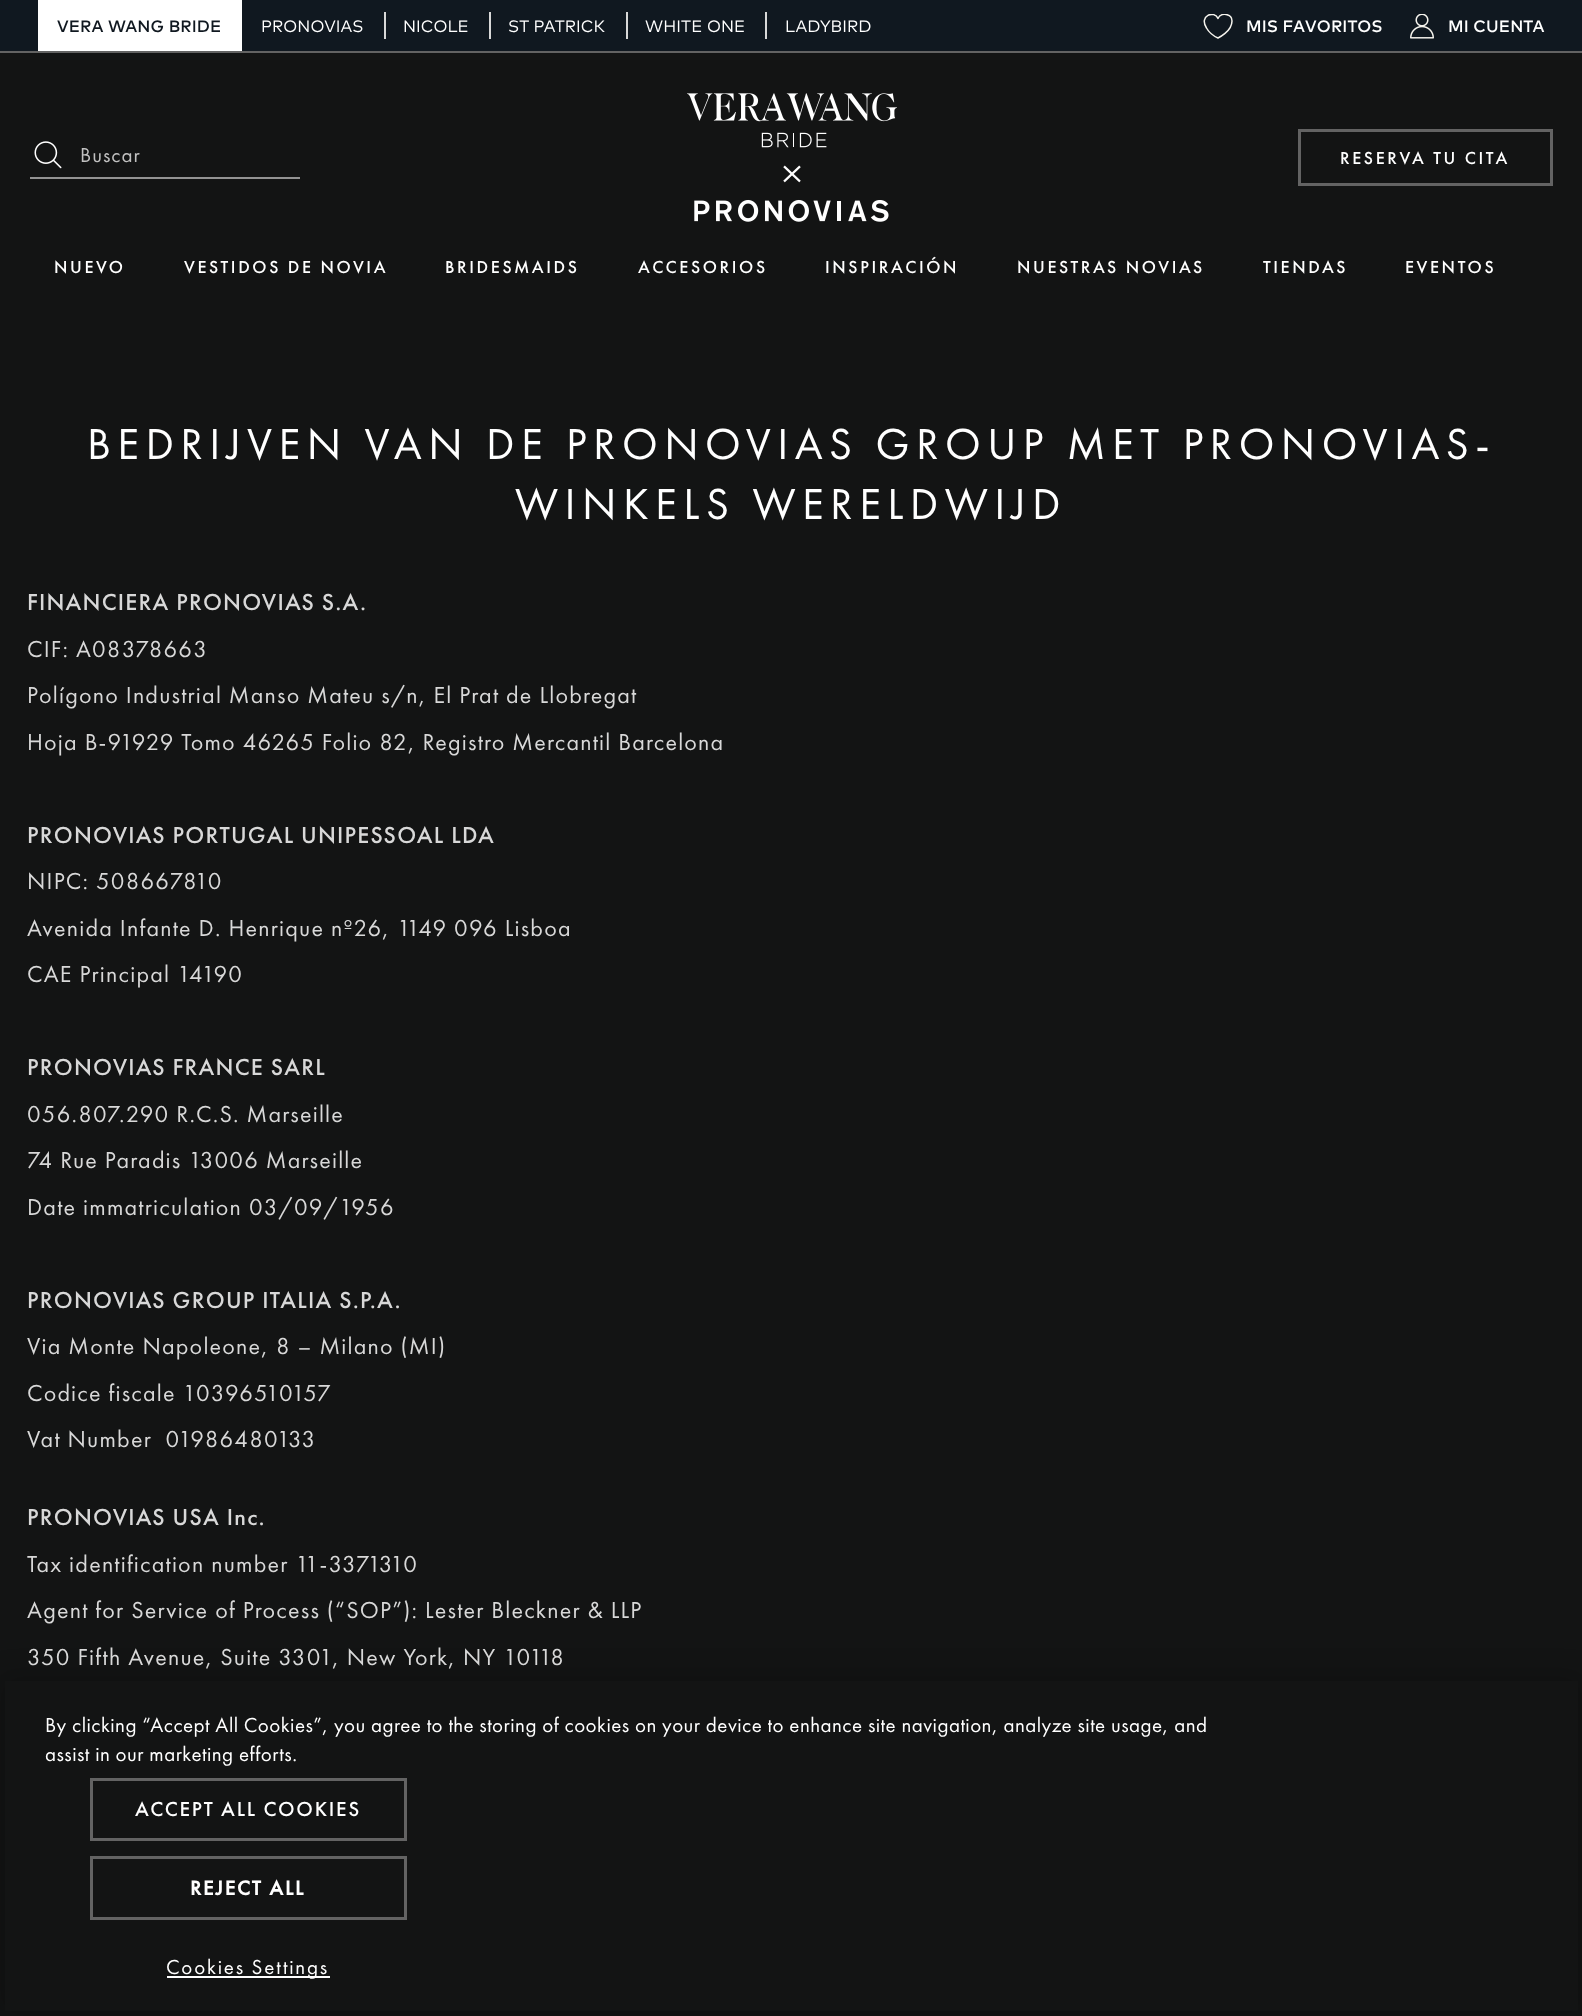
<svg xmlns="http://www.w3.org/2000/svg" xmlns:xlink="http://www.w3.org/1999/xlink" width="1582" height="2016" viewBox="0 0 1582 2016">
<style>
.cls-1{font:16.5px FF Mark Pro;letter-spacing:0.1px;fill:#101820}
.cls-2{font:16.5px 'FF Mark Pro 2';letter-spacing:0.1px;fill:#ffffff}
.cls-3{font:16.5px FF Mark Pro;letter-spacing:0.1px;fill:#ffffff}
.cls-4{font:21px Futura PT;letter-spacing:1px;fill:#c1c1c1}
.cls-5{font:500 18px Futura PT;letter-spacing:2.6px;fill:#ffffff}
.cls-6{font:45px Futura PT;letter-spacing:6.45px;fill:#ffffff}
.cls-7{font:500 24px Futura PT;letter-spacing:1.2px;fill:#d8d8d8}
.cls-8{font:24px Futura PT;letter-spacing:1.2px;fill:#d8d8d8}
.cls-9{font:21px Futura PT;letter-spacing:0.45px;fill:#ffffff}
.cls-10{font:500 21px Futura PT;letter-spacing:1.8px;fill:#ffffff}
.cls-11{font:bold 21px Futura PT;letter-spacing:1.8px;fill:#ffffff}
.cls-12{font:21px Futura PT;letter-spacing:1.8px;fill:#ffffff}
</style>
<defs>
<clipPath id="clip1"><rect x="1203" y="14" width="30" height="25"/></clipPath>
</defs>
<rect width="100%" height="100%" fill="#131414"/>
<rect fill="#101820" x="0" y="0" width="1582" height="51"/>
<rect fill="#ffffff" x="38" y="0" width="204" height="51"/>
<rect fill="#d8d8d8" x="384" y="12" width="2" height="27"/>
<rect fill="#d8d8d8" x="489" y="12" width="2" height="27"/>
<rect fill="#d8d8d8" x="626" y="12" width="2" height="27"/>
<rect fill="#d8d8d8" x="765" y="12" width="2" height="27"/>
<g clip-path="url(#clip1)">
<path fill="none" stroke="#f6f4ee" stroke-width="1.5" stroke-linejoin="round" d="M1232 21C1232 13.5 1221 12 1218 18.5C1214.5 10 1198.5 15.5 1206.5 28C1209 32.5 1213.5 36 1218 38C1218 38 1232 31.5 1232 21"/>
</g>
<image xlink:href="image0.png" x="1410" y="14" width="24" height="25"/>
<rect fill="#636363" x="0" y="51" width="1582" height="2"/>
<rect fill="#939393" x="30" y="177" width="270" height="2"/>
<image xlink:href="image1.png" x="34" y="141" width="28" height="28"/>
<image xlink:href="image2.png" x="687" y="93" width="210" height="129"/>
<rect fill="none" stroke="#636363" stroke-width="3" x="1299.5" y="130.5" width="252" height="54"/>
<rect fill="#000000" fill-opacity="0.2" filter="blur(13.5px)" x="0" y="1676" width="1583" height="340"/>
<rect fill="#131414" x="5" y="1681" width="1573" height="330"/>
<rect fill="none" stroke="#636363" stroke-width="3" x="91.5" y="1779.5" width="314" height="60"/>
<rect fill="none" stroke="#636363" stroke-width="3" x="91.5" y="1857.5" width="314" height="61"/>
<rect fill="#ffffff" x="167" y="1976" width="163" height="2"/>
<text class="cls-1" x="57" y="32">VERA WANG BRIDE</text>
<text class="cls-2" x="261" y="32">PRONOVIAS</text>
<text class="cls-2" x="403" y="32">NICOLE</text>
<text class="cls-2" x="508" y="32">ST PATRICK</text>
<text class="cls-2" x="645" y="32">WHITE ONE</text>
<text class="cls-2" x="785" y="32">LADYBIRD</text>
<text class="cls-3" x="1246" y="32">MIS FAVORITOS</text>
<text class="cls-3" x="1448" y="32">MI CUENTA</text>
<text class="cls-4" x="80" y="162">Buscar</text>
<text class="cls-5" x="1340" y="164">RESERVA TU CITA</text>
<text class="cls-5" x="54" y="273">NUEVO</text>
<text class="cls-5" x="184" y="273">VESTIDOS DE NOVIA</text>
<text class="cls-5" x="445" y="273">BRIDESMAIDS</text>
<text class="cls-5" x="638" y="273">ACCESORIOS</text>
<text class="cls-5" x="825" y="273">INSPIRACIÓN</text>
<text class="cls-5" x="1017" y="273">NUESTRAS NOVIAS</text>
<text class="cls-5" x="1263" y="273">TIENDAS</text>
<text class="cls-5" x="1405" y="273">EVENTOS</text>
<text class="cls-6" x="87" y="459">BEDRIJVEN VAN DE PRONOVIAS GROUP MET PRONOVIAS-</text>
<text class="cls-6" x="515" y="519">WINKELS WERELDWIJD</text>
<text class="cls-7" x="27" y="610">FINANCIERA PRONOVIAS S.A.</text>
<text class="cls-8"><tspan x="27" y="657">CIF: A08378663</tspan><tspan x="27" y="703">Polígono Industrial Manso Mateu s/n, El Prat de Llobregat</tspan><tspan x="27" y="750">Hoja B-91929 Tomo 46265 Folio 82, Registro Mercantil Barcelona</tspan></text>
<text class="cls-7" x="27" y="843">PRONOVIAS PORTUGAL UNIPESSOAL LDA</text>
<text class="cls-8"><tspan x="27" y="889">NIPC: 508667810</tspan><tspan x="27" y="936">Avenida Infante D. Henrique nº26, 1149 096 Lisboa</tspan><tspan x="27" y="982">CAE Principal 14190</tspan></text>
<text class="cls-7" x="27" y="1075">PRONOVIAS FRANCE SARL</text>
<text class="cls-8"><tspan x="27" y="1122">056.807.290 R.C.S. Marseille</tspan><tspan x="27" y="1168">74 Rue Paradis 13006 Marseille</tspan><tspan x="27" y="1215">Date immatriculation 03/09/1956</tspan></text>
<text class="cls-7" x="27" y="1308">PRONOVIAS GROUP ITALIA S.P.A.</text>
<text class="cls-8" xml:space="preserve"><tspan x="27" y="1354">Via Monte Napoleone, 8 – Milano (MI)</tspan><tspan x="27" y="1401">Codice fiscale 10396510157</tspan><tspan x="27" y="1447">Vat Number  01986480133</tspan></text>
<text class="cls-7" x="27" y="1525">PRONOVIAS USA Inc.</text>
<text class="cls-8"><tspan x="27" y="1572">Tax identification number 11-3371310</tspan><tspan x="27" y="1618">Agent for Service of Process (“SOP”): Lester Bleckner &amp; LLP</tspan><tspan x="27" y="1665">350 Fifth Avenue, Suite 3301, New York, NY 10118</tspan></text>
<text class="cls-9"><tspan x="45" y="1732">By clicking “Accept All Cookies”, you agree to the storing of cookies on your device to enhance site navigation, analyze site usage, and</tspan><tspan x="45" y="1761">assist in our marketing efforts.</tspan></text>
<text class="cls-10" x="135" y="1816">ACCEPT ALL COOKIES</text>
<text class="cls-11" x="190" y="1895">REJECT ALL</text>
<text class="cls-12" x="166" y="1974">Cookies Settings</text>
</svg>
